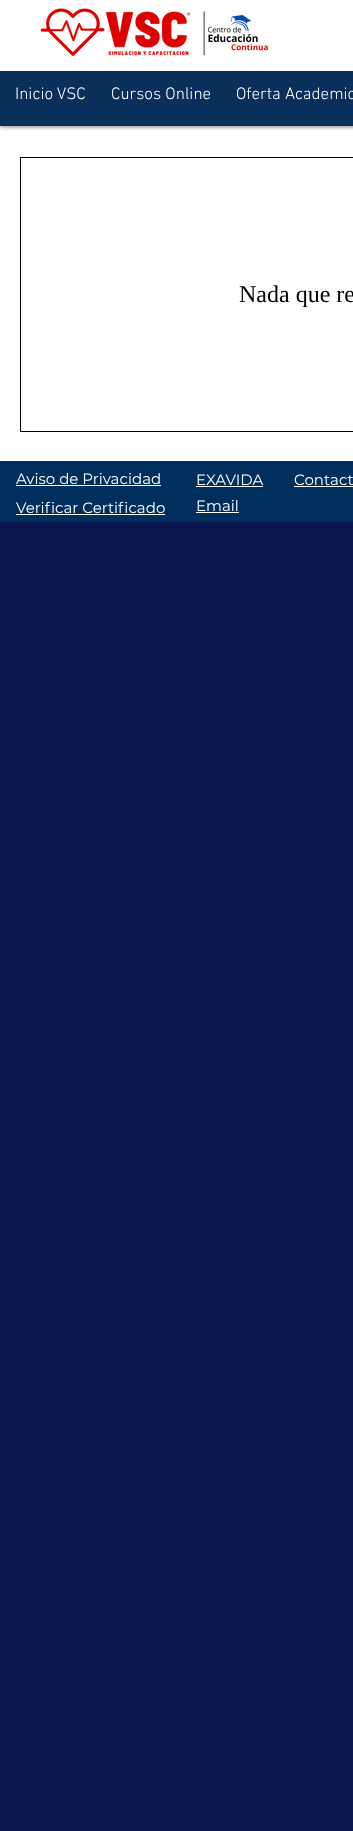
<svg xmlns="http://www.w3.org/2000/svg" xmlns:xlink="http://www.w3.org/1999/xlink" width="353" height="1831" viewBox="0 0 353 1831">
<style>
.cls-1{font:300 17px 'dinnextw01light';fill:#ffffff}
.cls-2{font:24px Liberation Serif;fill:#000000}
.cls-3{font:15px Montserrat;fill:#ffffff}
</style>
<rect width="100%" height="100%" fill="#0a184f"/>
<rect fill="#ffffff" x="0" y="126" width="353" height="335"/>
<rect fill="#000000" fill-opacity="0.7" filter="blur(2.5px)" x="0" y="0" width="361" height="126"/>
<rect fill="#ffffff" x="0" y="0" width="353" height="71"/>
<image xlink:href="image0.png" x="40" y="8" width="151" height="49"/>
<image xlink:href="image1.png" x="203" y="11" width="65" height="45"/>
<rect fill="#0b2f5b" x="0" y="71" width="353" height="55"/>
<rect fill="none" stroke="#000000" x="20.5" y="157.5" width="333" height="274"/>
<rect fill="#002e5d" x="0" y="461" width="353" height="61"/>
<rect fill="#ffffff" x="16" y="485" width="145" height="1"/>
<rect fill="#ffffff" x="196" y="486" width="67" height="1"/>
<rect fill="#ffffff" x="294" y="486" width="59" height="1"/>
<rect fill="#ffffff" x="16" y="514" width="149" height="1"/>
<rect fill="#ffffff" x="196" y="512" width="43" height="1"/>
<text class="cls-1" x="15" y="99">Inicio VSC</text>
<text class="cls-1" x="111" y="99">Cursos Online</text>
<text class="cls-1" x="236" y="99">Oferta Academic</text>
<text class="cls-2" x="239" y="302">Nada que re</text>
<text class="cls-3" x="16" y="484">Aviso de Privacidad</text>
<text class="cls-3" x="196" y="485">EXAVIDA</text>
<text class="cls-3" x="294" y="485">Contact</text>
<text class="cls-3" x="16" y="513">Verificar Certificado</text>
<text class="cls-3" x="196" y="511">Email</text>
</svg>
